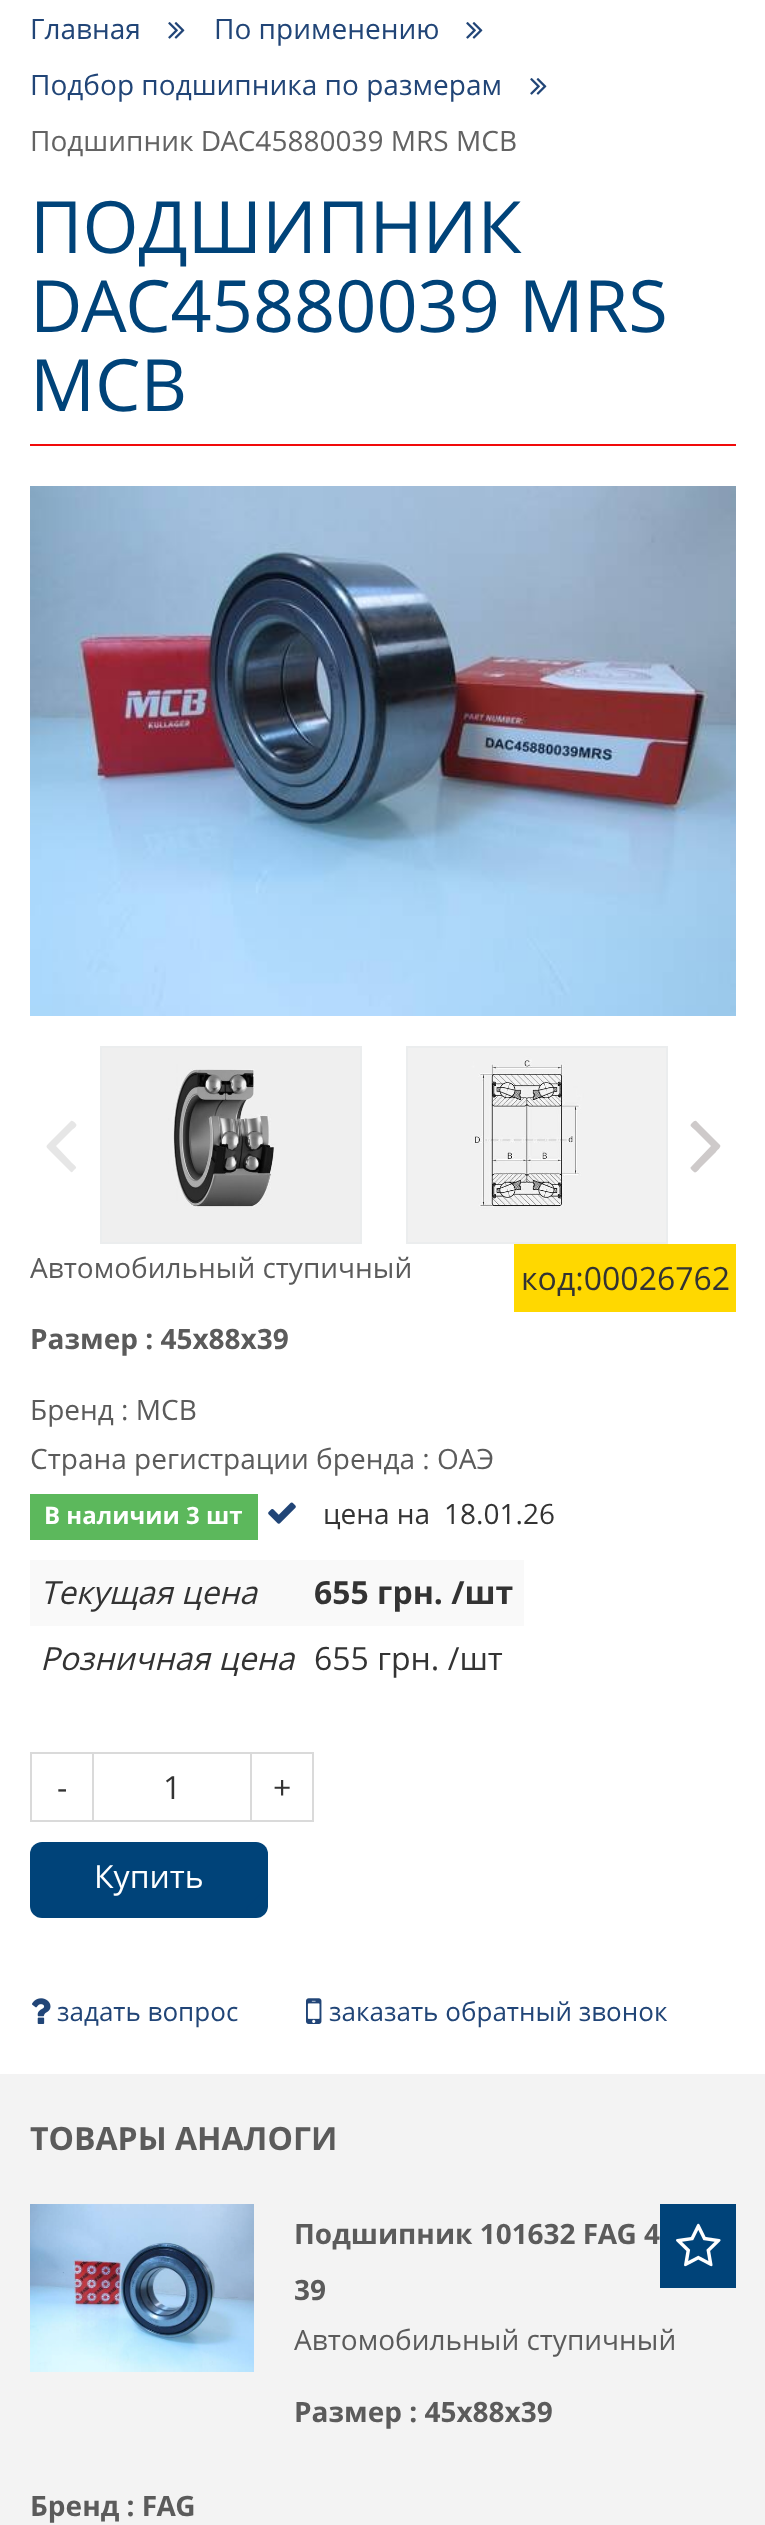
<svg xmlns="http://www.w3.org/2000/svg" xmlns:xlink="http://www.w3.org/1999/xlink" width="765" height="2525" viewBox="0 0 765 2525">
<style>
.cls-1{font:28px Open Sans;fill:#214577}
.cls-2{font:28px Open Sans;fill:#636363}
.cls-3{font:72px Open Sans;fill:#004379}
.cls-4{font:28px Open Sans;fill:#5b5b5b}
.cls-5{font:32px Open Sans;fill:#333333}
.cls-6{font:bold 28px Open Sans;fill:#5b5b5b}
.cls-7{font:bold 24px Open Sans;fill:#ffffff}
.cls-8{font:28px Open Sans;fill:#333333}
.cls-9{font:italic 32px Open Sans;fill:#333333}
.cls-10{font:bold 32px Open Sans;fill:#333333}
.cls-11{font:32px Open Sans;fill:#ffffff}
.cls-12{font:26px Open Sans;fill:#214577}
.cls-13{font:bold 32px Open Sans;fill:#5b5b5b}
</style>
<rect width="100%" height="100%" fill="#ffffff"/>
<image xlink:href="image0.png" x="168" y="22" width="17" height="17"/>
<image xlink:href="image0.png" x="466" y="22" width="17" height="17"/>
<image xlink:href="image0.png" x="530" y="78" width="17" height="17"/>
<rect fill="#f10a0a" x="30" y="444" width="706" height="2"/>
<image xlink:href="image1.png" x="30" y="486" width="706" height="530"/>
<path fill="#e6e6e6" d="M76 1124C78 1126 73 1129 72 1130L56 1146L72 1163C76 1167 78 1167 74 1170C73 1171 72 1173 71 1172L51 1152C45 1146 45 1147 51 1141L71 1121C73 1120 75 1123 76 1124Z"/>
<rect fill="none" stroke="#ebedee" stroke-width="2" x="101" y="1047" width="260" height="196"/>
<image xlink:href="image2.png" x="102" y="1048" width="258" height="194"/>
<rect fill="none" stroke="#ebedee" stroke-width="2" x="407" y="1047" width="260" height="196"/>
<image xlink:href="image3.png" x="408" y="1048" width="258" height="194"/>
<path fill="#cecaca" d="M720 1145C722 1147 716 1151 716 1152L700 1168C700 1168 696 1174 694 1172C693 1171 689 1168 691 1167L711 1146L695 1130C691 1126 689 1126 692 1123C696 1119 696 1121 700 1125Z"/>
<rect fill="#ffd800" x="514" y="1244" width="222" height="68"/>
<rect fill="#5cb85c" x="30" y="1494" width="228" height="46"/>
<image xlink:href="image4.png" x="268" y="1502" width="28" height="22"/>
<rect fill="#f9f9f9" x="30" y="1560" width="494" height="66"/>
<rect fill="none" stroke="#dadada" stroke-width="2" x="31" y="1753" width="62" height="68"/>
<rect fill="none" stroke="#dadada" stroke-width="2" x="93" y="1753" width="158" height="68"/>
<rect fill="none" stroke="#dadada" stroke-width="2" x="251" y="1753" width="62" height="68"/>
<rect fill="#004379" x="30" y="1842" width="238" height="76" rx="12"/>
<path fill="#004379" d="M266 1888.5L268 1890.5V1906C268 1908 262.5 1910 256 1910H247.5L246 1908.5Z"/>
<image xlink:href="image5.png" x="32" y="1998" width="19" height="26"/>
<image xlink:href="image6.png" x="306" y="1998" width="16" height="26"/>
<rect fill="#f3f3f3" x="0" y="2074" width="765" height="451"/>
<image xlink:href="image7.png" x="30" y="2204" width="224" height="168"/>
<rect fill="#004379" x="660" y="2204" width="76" height="84"/>
<image xlink:href="image8.png" x="676" y="2223" width="45" height="44"/>
<text class="cls-1" x="30" y="39">Главная</text>
<text class="cls-1" x="214" y="39">По применению</text>
<text class="cls-1" x="30" y="95">Подбор подшипника по размерам</text>
<text class="cls-2" x="30" y="151">Подшипник DAC45880039 MRS MCB</text>
<text class="cls-3"><tspan x="30" y="253">ПОДШИПНИК</tspan><tspan x="30" y="332">DAC45880039 MRS</tspan><tspan x="30" y="411">MCB</tspan></text>
<text class="cls-4" x="30" y="1278">Автомобильный ступичный</text>
<text class="cls-5" x="521" y="1290">код:00026762</text>
<text class="cls-6" x="30" y="1349">Размер : 45х88х39</text>
<text class="cls-4"><tspan x="30" y="1420">Бренд : MCB</tspan><tspan x="30" y="1469">Страна регистрации бренда : ОАЭ</tspan></text>
<text class="cls-7" x="44" y="1524">В наличии 3 шт</text>
<text class="cls-8" x="323" y="1524">цена на</text>
<text class="cls-8" x="444" y="1524">18.01.26</text>
<text class="cls-9" x="40" y="1604">Текущая цена</text>
<text class="cls-10" x="314" y="1604">655 грн. /шт</text>
<text class="cls-9" x="40" y="1670">Розничная цена</text>
<text class="cls-5" x="314" y="1670">655 грн. /шт</text>
<text class="cls-5" x="57" y="1799">-</text>
<text class="cls-5" x="163" y="1799">1</text>
<text class="cls-5" x="273" y="1799">+</text>
<text class="cls-11" x="94" y="1888">Купить</text>
<text class="cls-12" x="57" y="2021">задать вопрос</text>
<text class="cls-12" x="329" y="2021">заказать обратный звонок</text>
<text class="cls-13" x="30" y="2150">ТОВАРЫ АНАЛОГИ</text>
<text class="cls-6" x="294" y="2244">Подшипник 101632 FAG 4</text>
<text class="cls-6" x="294" y="2300">39</text>
<text class="cls-4" x="294" y="2350">Автомобильный ступичный</text>
<text class="cls-6" x="294" y="2422">Размер : 45х88х39</text>
<text class="cls-6" x="30" y="2516">Бренд : FAG</text>
</svg>
